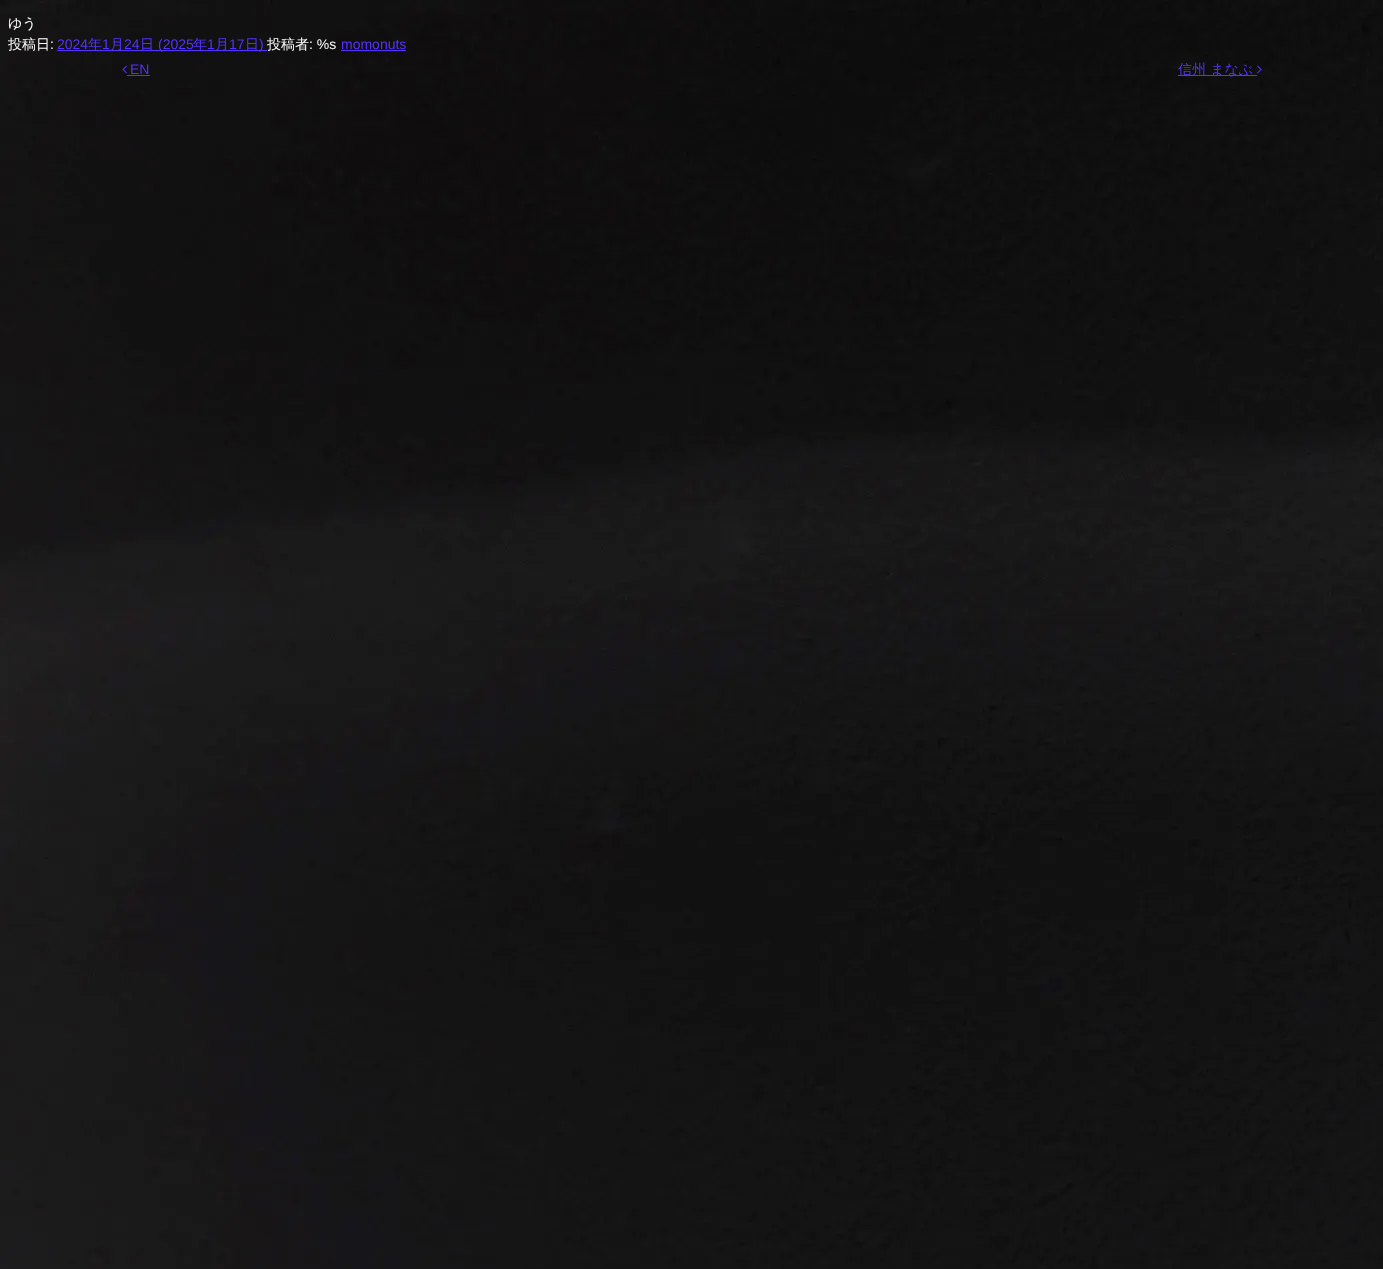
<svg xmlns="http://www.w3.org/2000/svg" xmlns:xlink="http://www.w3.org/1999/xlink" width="1383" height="1269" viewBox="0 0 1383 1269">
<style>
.cls-1{font:500 14px WenQuanYi Zen Hei;fill:#ffffff}
.cls-2{font:14px Liberation Sans;fill:#ffffff}
.cls-3{font:14px Liberation Sans;fill:#5533ff}
.cls-4{font:500 14px WenQuanYi Zen Hei;fill:#5533ff}
</style>
<rect width="100%" height="100%" fill="#ffffff"/>
<image xlink:href="image0.png" x="0" y="0" width="1383" height="1269"/>
<rect fill="#5533ff" x="57" y="50" width="210" height="1"/>
<rect fill="#5533ff" x="341" y="50" width="65" height="1"/>
<image xlink:href="image1.png" x="122" y="65" width="5" height="9"/>
<rect fill="#5533ff" x="127" y="75" width="23" height="1"/>
<rect fill="#5533ff" x="1178" y="75" width="79" height="1"/>
<image xlink:href="image2.png" x="1257" y="65" width="5" height="9"/>
<text class="cls-1"><tspan x="8" y="28">ゆう</tspan><tspan x="8" y="49">投稿日</tspan></text>
<text class="cls-2" x="50" y="49">:</text>
<text class="cls-3" x="57" y="49">2024</text>
<text class="cls-4" x="88" y="49">年</text>
<text class="cls-3" x="102" y="49">1</text>
<text class="cls-4" x="110" y="49">月</text>
<text class="cls-3" x="124" y="49">24</text>
<text class="cls-4" x="140" y="49">日</text>
<text class="cls-3" x="158" y="49">(2025</text>
<text class="cls-4" x="193" y="49">年</text>
<text class="cls-3" x="207" y="49">1</text>
<text class="cls-4" x="215" y="49">月</text>
<text class="cls-3" x="229" y="49">17</text>
<text class="cls-4" x="245" y="49">日</text>
<text class="cls-3" x="259" y="49">)</text>
<text class="cls-1" x="267" y="49">投稿者</text>
<text class="cls-2" x="309" y="49">: %s</text>
<text class="cls-3" x="341" y="49">momonuts</text>
<text class="cls-3" x="130" y="74">EN</text>
<text class="cls-4" x="1178" y="74">信州 まなぶ</text>
</svg>
